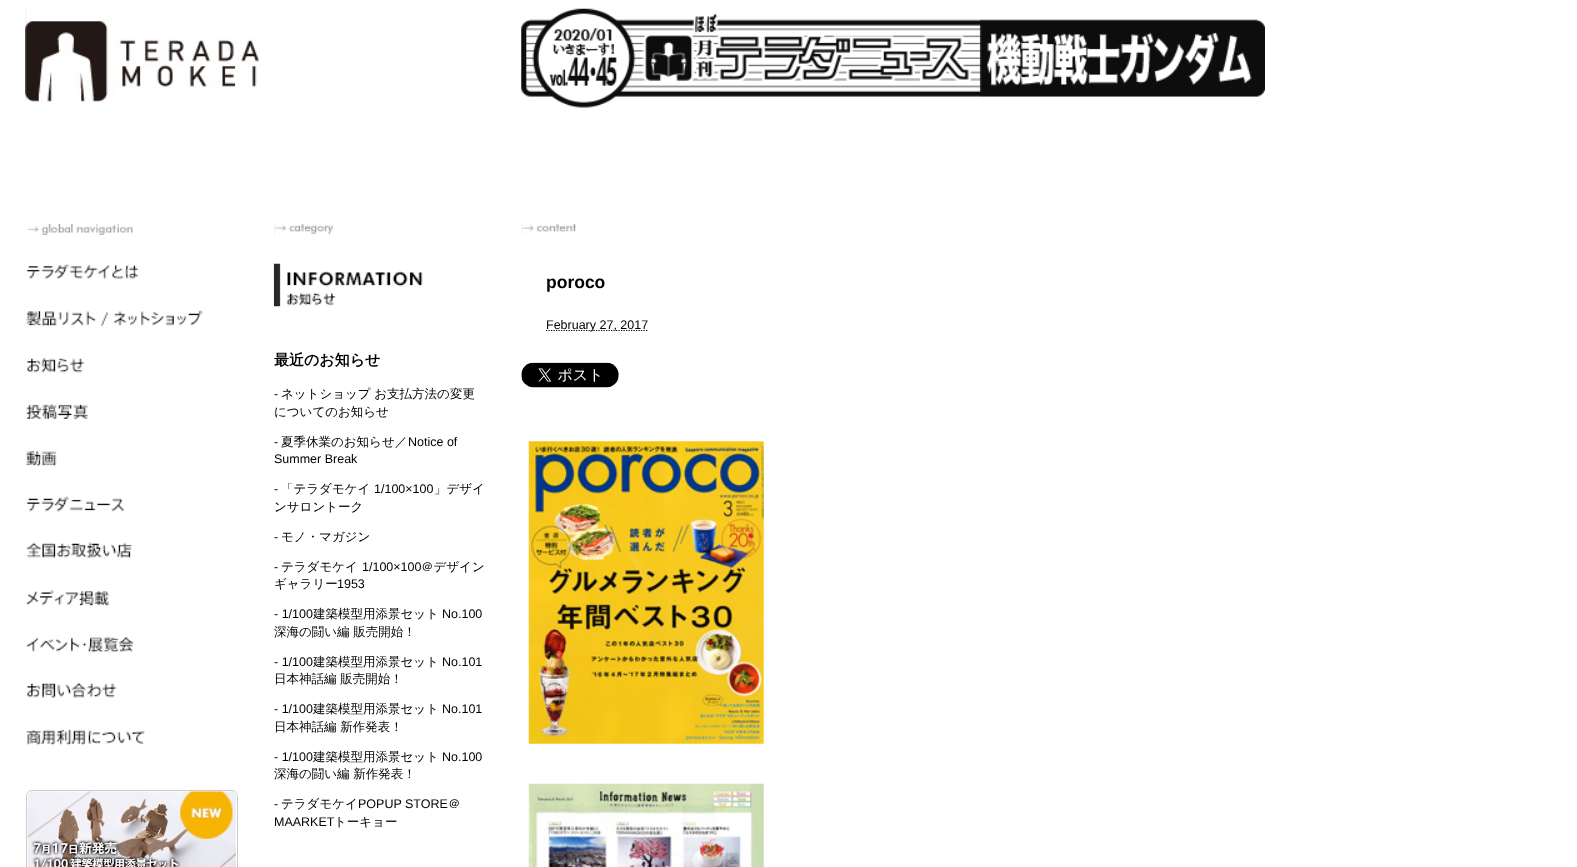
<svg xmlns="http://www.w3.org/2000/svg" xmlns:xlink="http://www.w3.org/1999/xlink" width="1577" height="867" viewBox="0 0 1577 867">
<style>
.cls-1{font:bold 17.5px Liberation Sans;fill:#000000}
.cls-2{font:12.5px Liberation Sans;fill:#000000}
.cls-3{font:bold 15px WenQuanYi Zen Hei;fill:#000000}
.cls-4{font:500 12.5px WenQuanYi Zen Hei;fill:#000000}
</style>
<rect width="100%" height="100%" fill="#ffffff"/>
<image xlink:href="image0.png" x="25" y="9" width="234" height="93"/>
<image xlink:href="image1.png" x="521" y="8" width="744" height="100"/>
<image xlink:href="image2.png" x="27" y="223" width="106" height="12"/>
<image xlink:href="image3.png" x="26" y="263" width="113" height="16"/>
<image xlink:href="image4.png" x="26" y="310" width="177" height="17"/>
<image xlink:href="image5.png" x="27" y="357" width="57" height="16"/>
<image xlink:href="image6.png" x="26" y="403" width="62" height="16"/>
<image xlink:href="image7.png" x="26" y="451" width="31" height="16"/>
<image xlink:href="image8.png" x="26" y="496" width="98" height="16"/>
<image xlink:href="image9.png" x="26" y="542" width="106" height="16"/>
<image xlink:href="image10.png" x="26" y="590" width="83" height="16"/>
<image xlink:href="image11.png" x="26" y="637" width="108" height="16"/>
<image xlink:href="image12.png" x="27" y="682" width="90" height="16"/>
<image xlink:href="image13.png" x="26" y="729" width="119" height="17"/>
<rect fill="none" stroke="#cccccc" x="26.5" y="790.5" width="211" height="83" rx="5.5"/>
<image xlink:href="image14.png" x="27" y="791" width="209" height="76"/>
<image xlink:href="image15.png" x="521" y="223" width="56" height="12"/>
<path fill="none" stroke="#000000" stroke-width="1.2" stroke-dasharray="1.25 1.25" d="M546 330.5H648.5"/>
<image xlink:href="image16.png" x="521" y="362" width="98" height="26"/>
<image xlink:href="image17.png" x="528" y="441" width="236" height="303"/>
<image xlink:href="image18.png" x="528" y="783" width="236" height="84"/>
<image xlink:href="image19.png" x="274" y="224" width="60" height="11"/>
<image xlink:href="image20.png" x="273" y="263" width="150" height="44"/>
<text class="cls-1" x="546" y="288">poroco</text>
<text class="cls-2" x="546" y="329">February 27, 2017</text>
<text class="cls-3" x="274" y="365">最近のお知らせ</text>
<text class="cls-2" x="274" y="398">-</text>
<text class="cls-4" x="281" y="398">ネットショップ お支払方法の変更</text>
<text class="cls-4" x="274" y="416">についてのお知らせ</text>
<text class="cls-2" x="274" y="446">-</text>
<text class="cls-4" x="281" y="446">夏季休業のお知らせ／</text>
<text class="cls-2" x="408" y="446">Notice of</text>
<text class="cls-2" x="274" y="463">Summer Break</text>
<text class="cls-2" x="274" y="493">-</text>
<text class="cls-4" x="281" y="493">「テラダモケイ</text>
<text class="cls-2" x="374" y="493">1/100×100</text>
<text class="cls-4" x="434" y="493">」デザイ</text>
<text class="cls-4" x="274" y="511">ンサロントーク</text>
<text class="cls-2" x="274" y="541">-</text>
<text class="cls-4" x="281" y="541">モノ・マガジン</text>
<text class="cls-2" x="274" y="571">-</text>
<text class="cls-4" x="281" y="571">テラダモケイ</text>
<text class="cls-2" x="362" y="571">1/100×100</text>
<text class="cls-4" x="421" y="571">＠デザイン</text>
<text class="cls-4" x="274" y="588">ギャラリー</text>
<text class="cls-2" x="337" y="588">1953</text>
<text class="cls-2" x="274" y="618">- 1/100</text>
<text class="cls-4" x="313" y="618">建築模型用添景セット</text>
<text class="cls-2" x="442" y="618">No.100</text>
<text class="cls-4" x="274" y="636">深海の闘い編 販売開始！</text>
<text class="cls-2" x="274" y="666">- 1/100</text>
<text class="cls-4" x="313" y="666">建築模型用添景セット</text>
<text class="cls-2" x="442" y="666">No.101</text>
<text class="cls-4" x="274" y="683">日本神話編 販売開始！</text>
<text class="cls-2" x="274" y="713">- 1/100</text>
<text class="cls-4" x="313" y="713">建築模型用添景セット</text>
<text class="cls-2" x="442" y="713">No.101</text>
<text class="cls-4" x="274" y="731">日本神話編 新作発表！</text>
<text class="cls-2" x="274" y="761">- 1/100</text>
<text class="cls-4" x="313" y="761">建築模型用添景セット</text>
<text class="cls-2" x="442" y="761">No.100</text>
<text class="cls-4" x="274" y="778">深海の闘い編 新作発表！</text>
<text class="cls-2" x="274" y="808">-</text>
<text class="cls-4" x="281" y="808">テラダモケイ</text>
<text class="cls-2" x="358" y="808">POPUP STORE</text>
<text class="cls-4" x="448" y="808">＠</text>
<text class="cls-2" x="274" y="826">MAARKET</text>
<text class="cls-4" x="334" y="826">トーキョー</text>
</svg>
